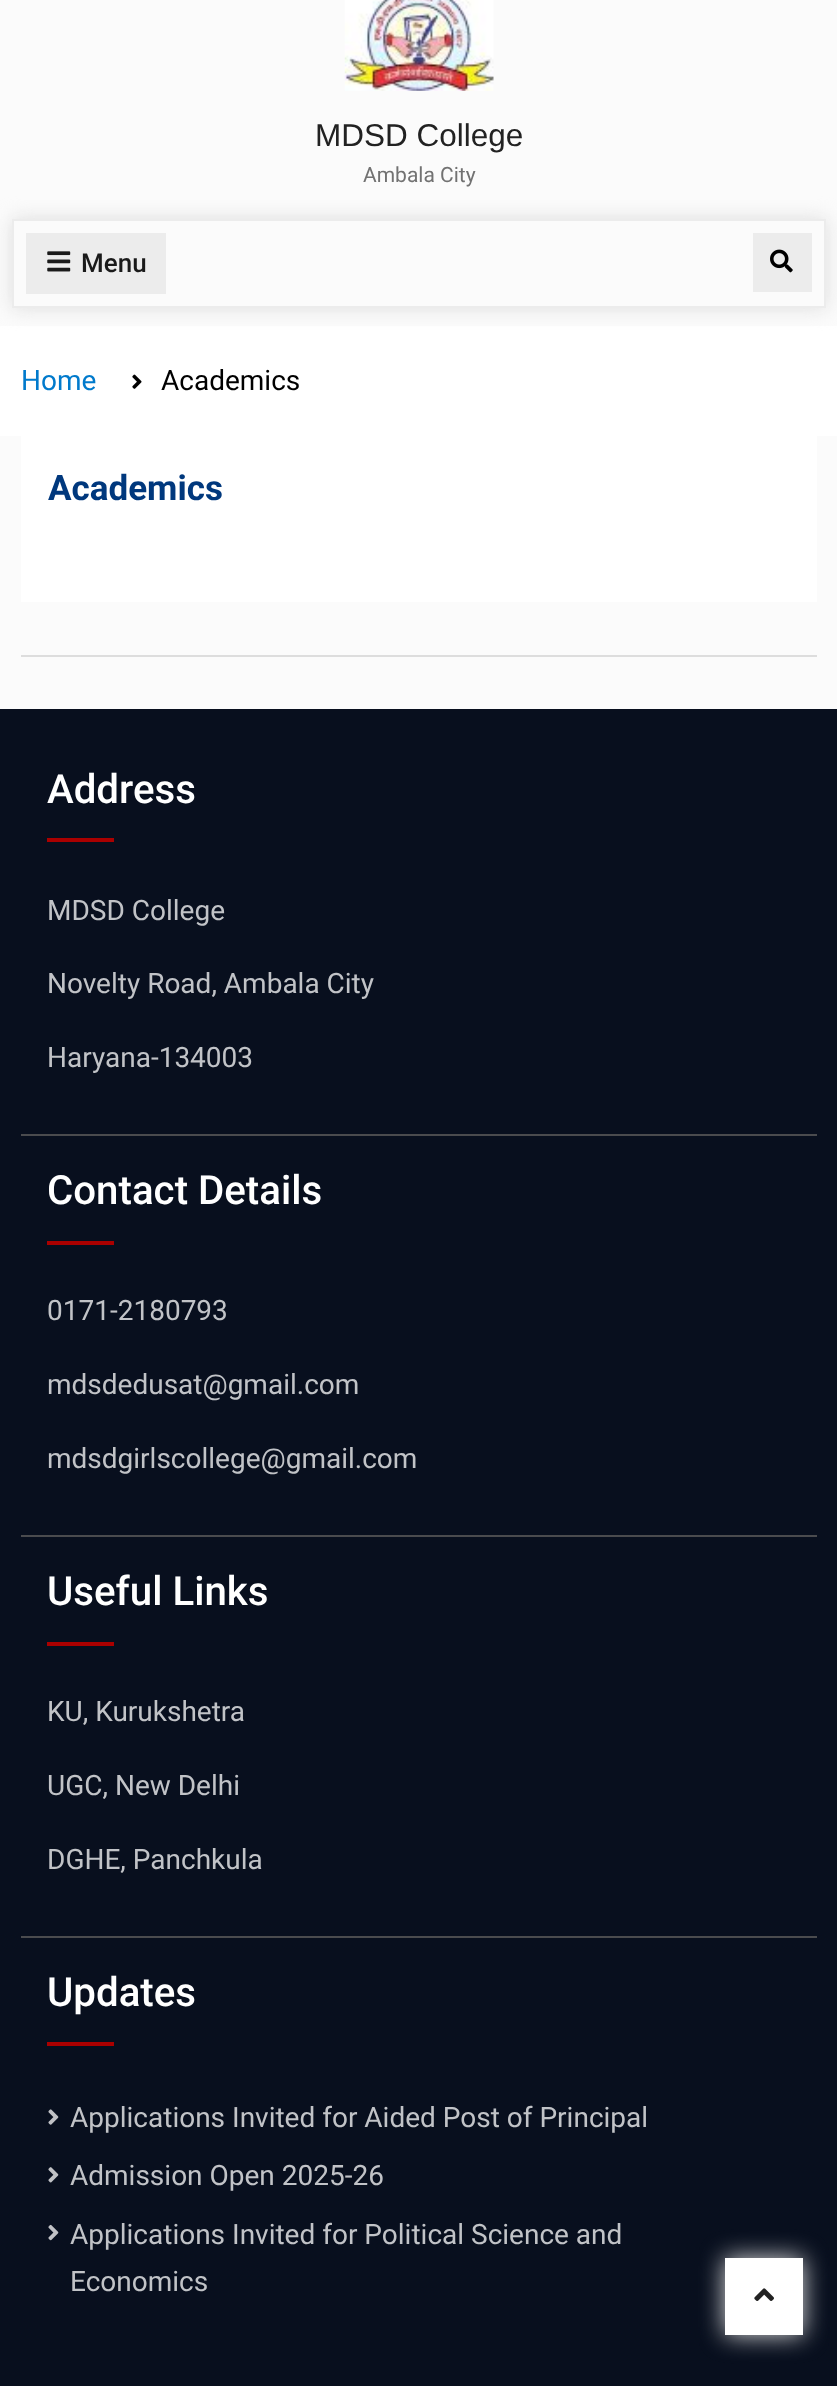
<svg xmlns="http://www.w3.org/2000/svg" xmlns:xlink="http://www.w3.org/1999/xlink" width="837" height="2386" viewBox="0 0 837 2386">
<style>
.cls-1{font:31.5px Liberation Sans;fill:#222222}
.cls-2{font:21px Roboto;fill:#727272}
.cls-3{font:500 26px Roboto;fill:#1a1a1a}
.cls-4{font:28px Roboto;fill:#007acc}
.cls-5{font:28px Roboto;fill:#000000}
.cls-6{font:bold 35px Roboto;fill:#00387d}
.cls-7{font:500 40.25px Roboto;fill:#ffffff}
.cls-8{font:28px Roboto;fill:#c1c3c7}
</style>
<defs>
<clipPath id="clip1"><path d="M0 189H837V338H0ZM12 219H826V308H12Z" clip-rule="evenodd"/></clipPath>
</defs>
<rect width="100%" height="100%" fill="#fbfbfb"/>
<image xlink:href="image0.png" x="344" y="0" width="150" height="91"/>
<rect fill="#ffffff" x="0" y="326" width="837" height="110"/>
<g clip-path="url(#clip1)">
<rect fill="#dddddd" filter="blur(9.5px)" x="12" y="219" width="814" height="89"/>
</g>
<rect fill="none" stroke="#ececec" stroke-width="2" x="13" y="220" width="812" height="87"/>
<rect fill="#ececec" x="26" y="233" width="140" height="61"/>
<image xlink:href="image1.png" x="47" y="251" width="24" height="21"/>
<rect fill="#ececec" x="753" y="233" width="59" height="59"/>
<image xlink:href="image2.png" x="770" y="249" width="23" height="24"/>
<image xlink:href="image3.png" x="132" y="374" width="10" height="15"/>
<rect fill="#dddddd" x="21" y="655" width="796" height="2"/>
<rect fill="#ffffff" x="21" y="436" width="796" height="166"/>
<rect fill="#080f1e" x="0" y="709" width="837" height="1677"/>
<rect fill="#aa0000" x="47" y="838" width="67" height="4"/>
<rect fill="#4a4b4e" x="21" y="1134" width="796" height="2"/>
<rect fill="#aa0000" x="47" y="1241" width="67" height="4"/>
<rect fill="#4a4b4e" x="21" y="1535" width="796" height="2"/>
<rect fill="#aa0000" x="47" y="1642" width="67" height="4"/>
<rect fill="#4a4b4e" x="21" y="1936" width="796" height="2"/>
<rect fill="#aa0000" x="47" y="2042" width="67" height="4"/>
<image xlink:href="image4.png" x="48" y="2109" width="11" height="16"/>
<image xlink:href="image5.png" x="48" y="2167" width="11" height="16"/>
<image xlink:href="image6.png" x="48" y="2224" width="11" height="17"/>
<rect fill="#dddddd" filter="blur(12px)" x="725" y="2258" width="78" height="77"/>
<rect fill="#ffffff" x="725" y="2258" width="78" height="77"/>
<image xlink:href="image7.png" x="754" y="2288" width="20" height="13"/>
<text class="cls-1" x="315" y="146">MDSD College</text>
<text class="cls-2" x="363" y="182">Ambala City</text>
<text class="cls-3" x="81" y="272">Menu</text>
<text class="cls-4" x="21" y="390">Home</text>
<text class="cls-5" x="161" y="390">Academics</text>
<text class="cls-6" x="48" y="500">Academics</text>
<text class="cls-7" x="47" y="803">Address</text>
<text class="cls-8" x="47" y="920">MDSD College</text>
<text class="cls-8" x="47" y="993">Novelty Road, Ambala City</text>
<text class="cls-8" x="47" y="1067">Haryana-134003</text>
<text class="cls-7" x="47" y="1204">Contact Details</text>
<text class="cls-8" x="47" y="1320">0171-2180793</text>
<text class="cls-8" x="47" y="1394">mdsdedusat@gmail.com</text>
<text class="cls-8" x="47" y="1468">mdsdgirlscollege@gmail.com</text>
<text class="cls-7" x="47" y="1605">Useful Links</text>
<text class="cls-8" x="47" y="1721">KU, Kurukshetra</text>
<text class="cls-8" x="47" y="1795">UGC, New Delhi</text>
<text class="cls-8" x="47" y="1869">DGHE, Panchkula</text>
<text class="cls-7" x="47" y="2006">Updates</text>
<text class="cls-8" x="70" y="2127">Applications Invited for Aided Post of Principal</text>
<text class="cls-8" x="70" y="2185">Admission Open 2025-26</text>
<text class="cls-8"><tspan x="70" y="2244">Applications Invited for Political Science and</tspan><tspan x="70" y="2291">Economics</tspan></text>
</svg>
